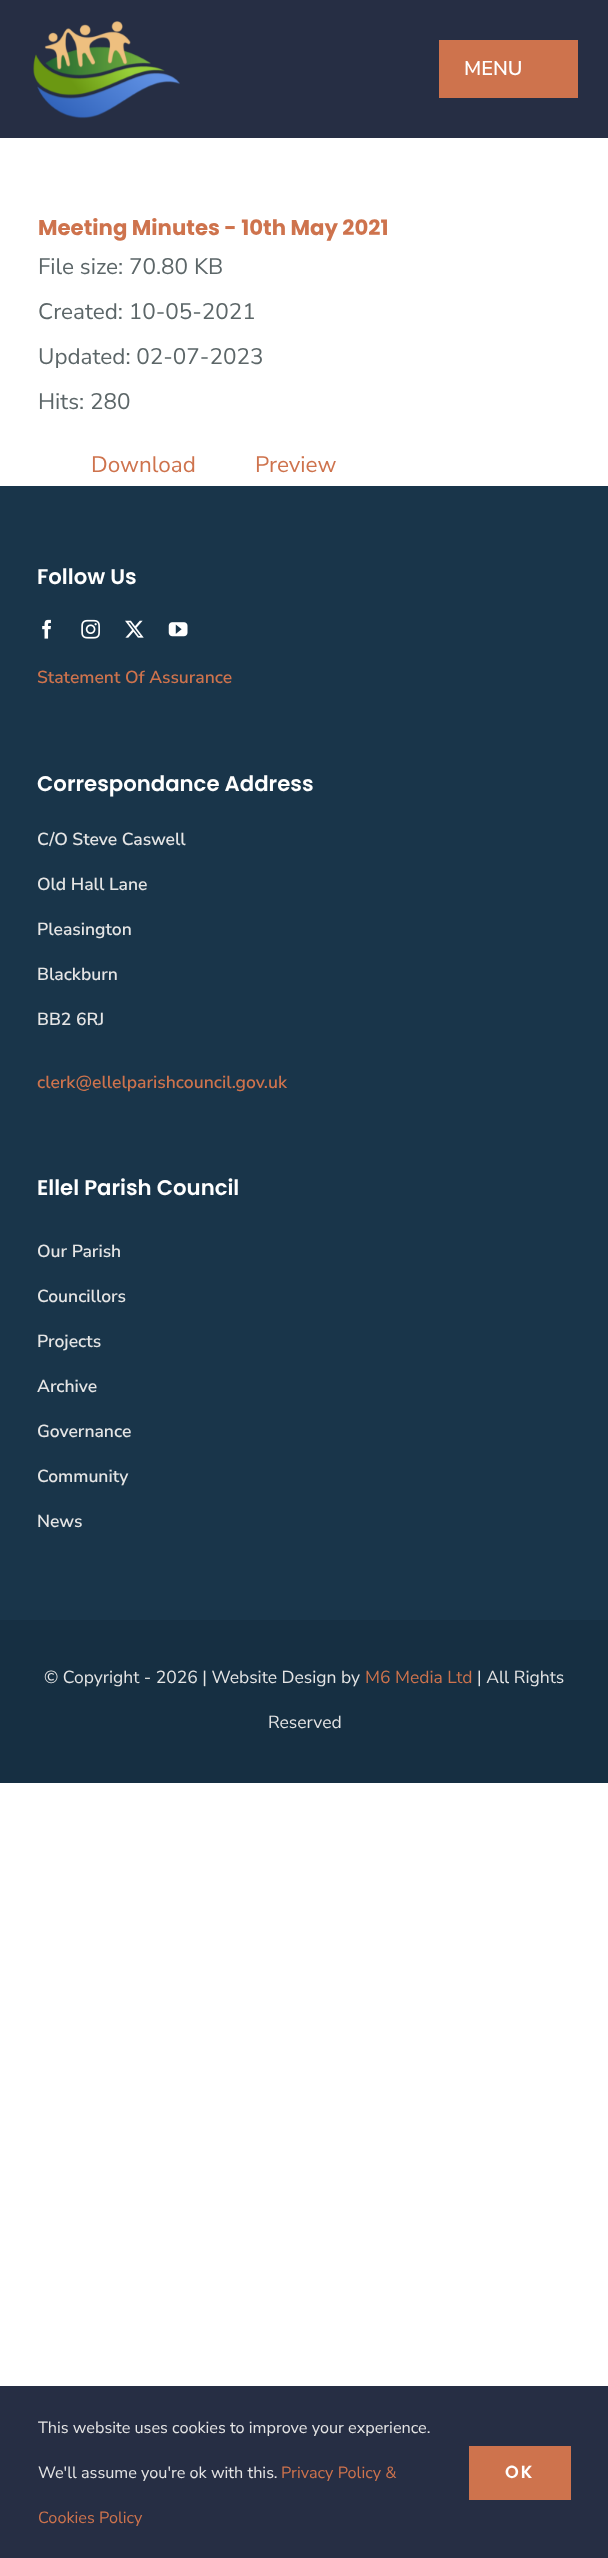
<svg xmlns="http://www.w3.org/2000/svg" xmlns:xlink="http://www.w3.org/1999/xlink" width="608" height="2558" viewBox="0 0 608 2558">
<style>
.cls-1{font:600 20px Nunito Sans;fill:#ffffff}
.cls-2{font:bold 21.25px Poppins;fill:#ce734d}
.cls-3{font:22.5px Nunito Sans;fill:#5c6668}
.cls-4{font:22.5px Nunito Sans;fill:#ce734d}
.cls-5{font:600 21.25px Poppins;fill:#ffffff}
.cls-6{font:600 17.5px Nunito Sans;fill:#ce734d}
.cls-7{font:600 17.5px Nunito Sans;fill:#e5e5e5}
.cls-8{font:17.5px Nunito Sans;fill:#e5e5e5}
.cls-9{font:17.5px Nunito Sans;fill:#ce734d}
.cls-10{font:16.25px Nunito Sans;fill:#e5e5e5}
.cls-11{font:16.25px Nunito Sans;fill:#ce734d}
.cls-12{font:600 17.5px Poppins;letter-spacing:2px;fill:#ffffff}
</style>
<rect width="100%" height="100%" fill="#ffffff"/>
<rect fill="#262e44" x="0" y="0" width="608" height="138"/>
<image xlink:href="image0.png" x="33" y="21" width="147" height="98"/>
<rect fill="#ce734d" x="439" y="40" width="139" height="58"/>
<rect fill="#19354a" x="0" y="486" width="608" height="1134"/>
<image xlink:href="image1.png" x="42" y="619" width="9" height="20"/>
<image xlink:href="image2.png" x="81" y="619" width="19" height="20"/>
<image xlink:href="image3.png" x="125" y="620" width="19" height="18"/>
<image xlink:href="image4.png" x="168" y="622" width="20" height="15"/>
<rect fill="#162f42" x="0" y="1620" width="608" height="163"/>
<rect fill="#262e44" x="0" y="2386" width="608" height="172"/>
<rect fill="#ce734d" x="469" y="2446" width="102" height="54"/>
<text class="cls-1" x="464" y="75">MENU</text>
<text class="cls-2" x="38" y="235">Meeting Minutes - 10th May 2021</text>
<text class="cls-3" x="38" y="274">File size: 70.80 KB</text>
<text class="cls-3" x="38" y="319">Created: 10-05-2021</text>
<text class="cls-3" x="38" y="364">Updated: 02-07-2023</text>
<text class="cls-3" x="38" y="409">Hits: 280</text>
<text class="cls-4" x="91" y="472">Download</text>
<text class="cls-4" x="255" y="472">Preview</text>
<text class="cls-5" x="37" y="584">Follow Us</text>
<text class="cls-6" x="37" y="683">Statement Of Assurance</text>
<text class="cls-5" x="37" y="791">Correspondance Address</text>
<text class="cls-7" x="37" y="845">C/O Steve Caswell</text>
<text class="cls-7" x="37" y="890">Old Hall Lane</text>
<text class="cls-7" x="37" y="935">Pleasington</text>
<text class="cls-7" x="37" y="980">Blackburn</text>
<text class="cls-7" x="37" y="1025">BB2 6RJ</text>
<text class="cls-6" x="37" y="1088">clerk@ellelparishcouncil.gov.uk</text>
<text class="cls-5" x="37" y="1195">Ellel Parish Council</text>
<text class="cls-7" x="37" y="1257">Our Parish</text>
<text class="cls-7" x="37" y="1302">Councillors</text>
<text class="cls-7" x="37" y="1347">Projects</text>
<text class="cls-7" x="37" y="1392">Archive</text>
<text class="cls-7" x="37" y="1437">Governance</text>
<text class="cls-7" x="37" y="1482">Community</text>
<text class="cls-7" x="37" y="1527">News</text>
<text class="cls-8" x="44" y="1683">© Copyright - 2026 | Website Design by</text>
<text class="cls-9" x="365" y="1683">M6 Media Ltd</text>
<text class="cls-8" x="477" y="1683">| All Rights</text>
<text class="cls-8" x="268" y="1728">Reserved</text>
<text class="cls-10" x="38" y="2433">This website uses cookies to improve your experience.</text>
<text class="cls-10" x="38" y="2478">We'll assume you're ok with this.</text>
<text class="cls-11" x="281" y="2478">Privacy Policy &amp;</text>
<text class="cls-11" x="38" y="2523">Cookies Policy</text>
<text class="cls-12" x="505" y="2478">OK</text>
</svg>
